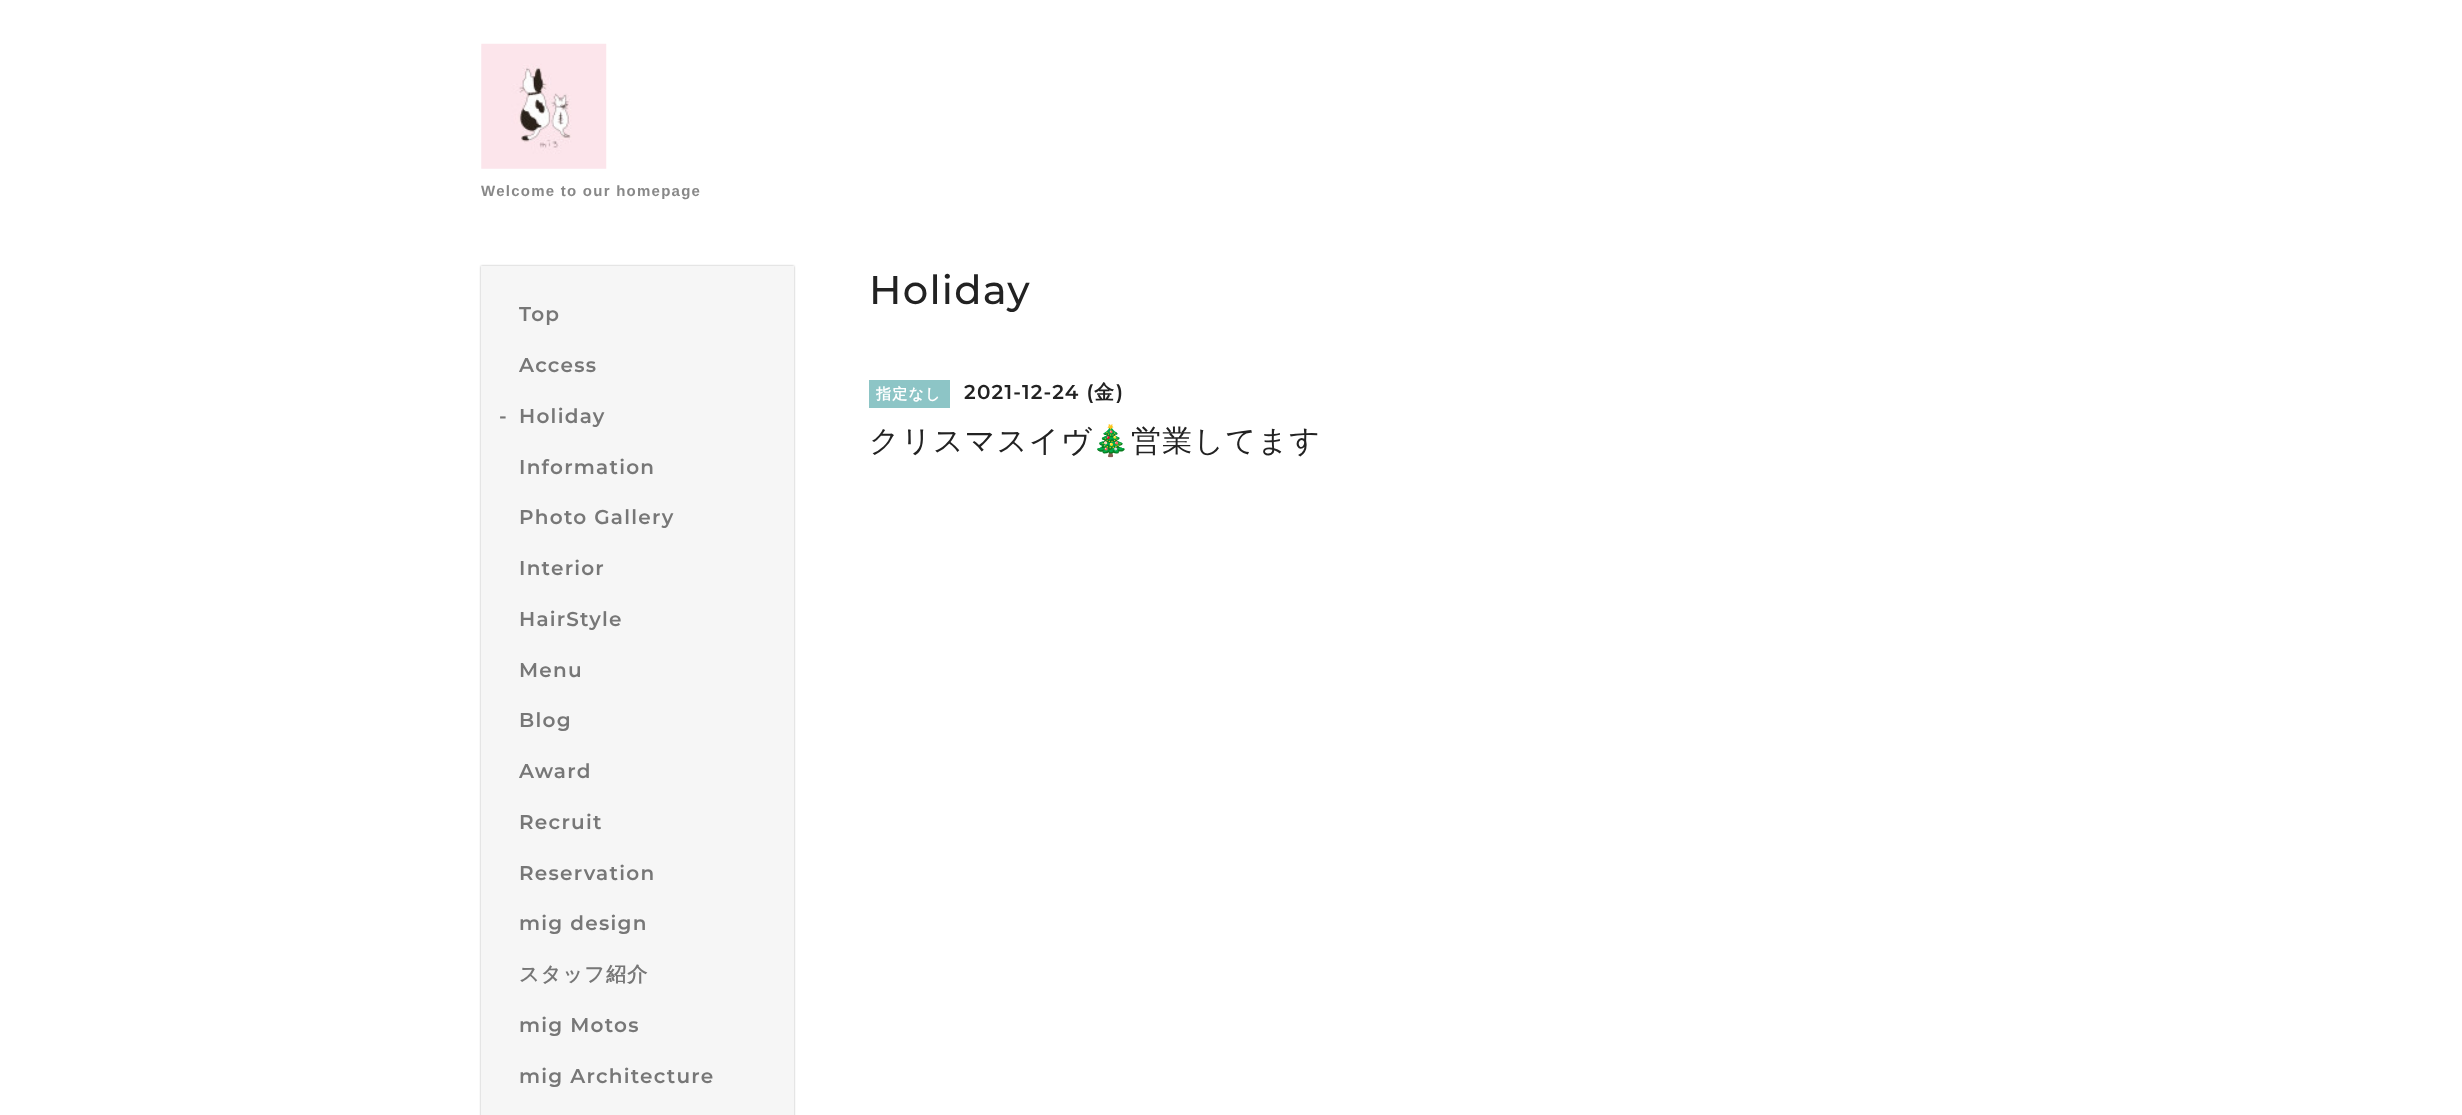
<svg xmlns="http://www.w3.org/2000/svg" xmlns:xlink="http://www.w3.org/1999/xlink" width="2462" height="1115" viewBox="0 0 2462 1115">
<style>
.cls-1{font:bold 15px Liberation Sans;letter-spacing:1.25px;fill:#888888}
.cls-2{font:600 20px Montserrat;letter-spacing:1.25px;fill:#777777}
.cls-3{font:bold 20px WenQuanYi Zen Hei;letter-spacing:1.25px;fill:#777777}
.cls-4{font:500 40px Montserrat;letter-spacing:1.25px;fill:#222222}
.cls-5{font:bold 15px WenQuanYi Zen Hei;letter-spacing:1.25px;fill:#ffffff}
.cls-6{font:600 20px Montserrat;letter-spacing:1.25px;fill:#222222}
.cls-7{font:bold 20px WenQuanYi Zen Hei;letter-spacing:1.25px;fill:#222222}
.cls-8{font:500 30px WenQuanYi Zen Hei;letter-spacing:1.25px;fill:#222222}
.cls-9{font:30px Noto Color Emoji;letter-spacing:1.25px;fill:#222222}
</style>
<rect width="100%" height="100%" fill="#ffffff"/>
<image xlink:href="image0.png" x="481" y="43" width="126" height="126"/>
<rect fill="#000000" fill-opacity="0.3" filter="blur(1px)" x="481" y="266" width="313" height="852"/>
<rect fill="#f6f6f6" x="481" y="266" width="313" height="849"/>
<rect fill="#8dc5c6" x="869" y="380" width="81" height="28"/>
<text class="cls-1" x="481" y="196">Welcome to our homepage</text>
<text class="cls-2" x="519" y="321">Top</text>
<text class="cls-2" x="519" y="372">Access</text>
<text class="cls-2" x="499" y="423">-</text>
<text class="cls-2" x="519" y="423">Holiday</text>
<text class="cls-2" x="519" y="474">Information</text>
<text class="cls-2" x="519" y="524">Photo Gallery</text>
<text class="cls-2" x="519" y="575">Interior</text>
<text class="cls-2" x="519" y="626">HairStyle</text>
<text class="cls-2" x="519" y="677">Menu</text>
<text class="cls-2" x="519" y="727">Blog</text>
<text class="cls-2" x="519" y="778">Award</text>
<text class="cls-2" x="519" y="829">Recruit</text>
<text class="cls-2" x="519" y="880">Reservation</text>
<text class="cls-2" x="519" y="930">mig design</text>
<text class="cls-3" x="519" y="981">スタッフ紹介</text>
<text class="cls-2" x="519" y="1032">mig Motos</text>
<text class="cls-2" x="519" y="1083">mig Architecture</text>
<text class="cls-4" x="869" y="304">Holiday</text>
<text class="cls-5" x="876" y="399">指定なし</text>
<text class="cls-6" x="964" y="399">2021-12-24 (</text>
<text class="cls-7" x="1094" y="399">金</text>
<text class="cls-6" x="1116" y="399">)</text>
<text class="cls-8" x="869" y="451">クリスマスイヴ</text>
<text class="cls-9" x="1092" y="451">🎄</text>
<text class="cls-8" x="1131" y="451">営業してます</text>
</svg>
